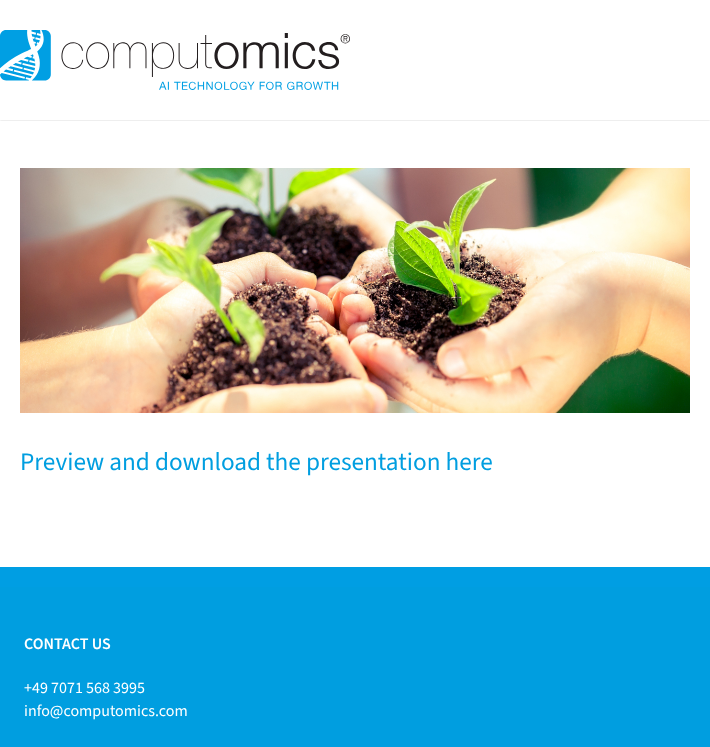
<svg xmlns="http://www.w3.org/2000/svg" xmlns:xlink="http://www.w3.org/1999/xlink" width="710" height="747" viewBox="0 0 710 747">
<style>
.cls-1{font:25.25px 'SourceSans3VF';fill:#009ee0}
.cls-2{font:600 16px 'SourceSans3VF';fill:#ffffff}
.cls-3{font:16px 'SourceSans3VF';fill:#ffffff}
</style>
<defs>
<clipPath id="clip1"><rect x="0" y="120" width="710" height="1"/></clipPath>
</defs>
<rect width="100%" height="100%" fill="#ffffff"/>
<g clip-path="url(#clip1)">
<rect fill="#000000" fill-opacity="0.2" filter="blur(1px)" x="0" y="0" width="710" height="120"/>
</g>
<image xlink:href="image0.png" x="0" y="30" width="350" height="60"/>
<image xlink:href="image1.png" x="20" y="168" width="670" height="245"/>
<rect fill="#009ee3" x="0" y="567" width="710" height="20"/>
<rect fill="#009ee0" x="0" y="587" width="710" height="160"/>
<text class="cls-1" x="20" y="470">Preview and download the presentation here</text>
<text class="cls-2" x="24" y="649">CONTACT US</text>
<text class="cls-3"><tspan x="24" y="693">+49 7071 568 3995</tspan><tspan x="24" y="716">info@computomics.com</tspan></text>
</svg>
